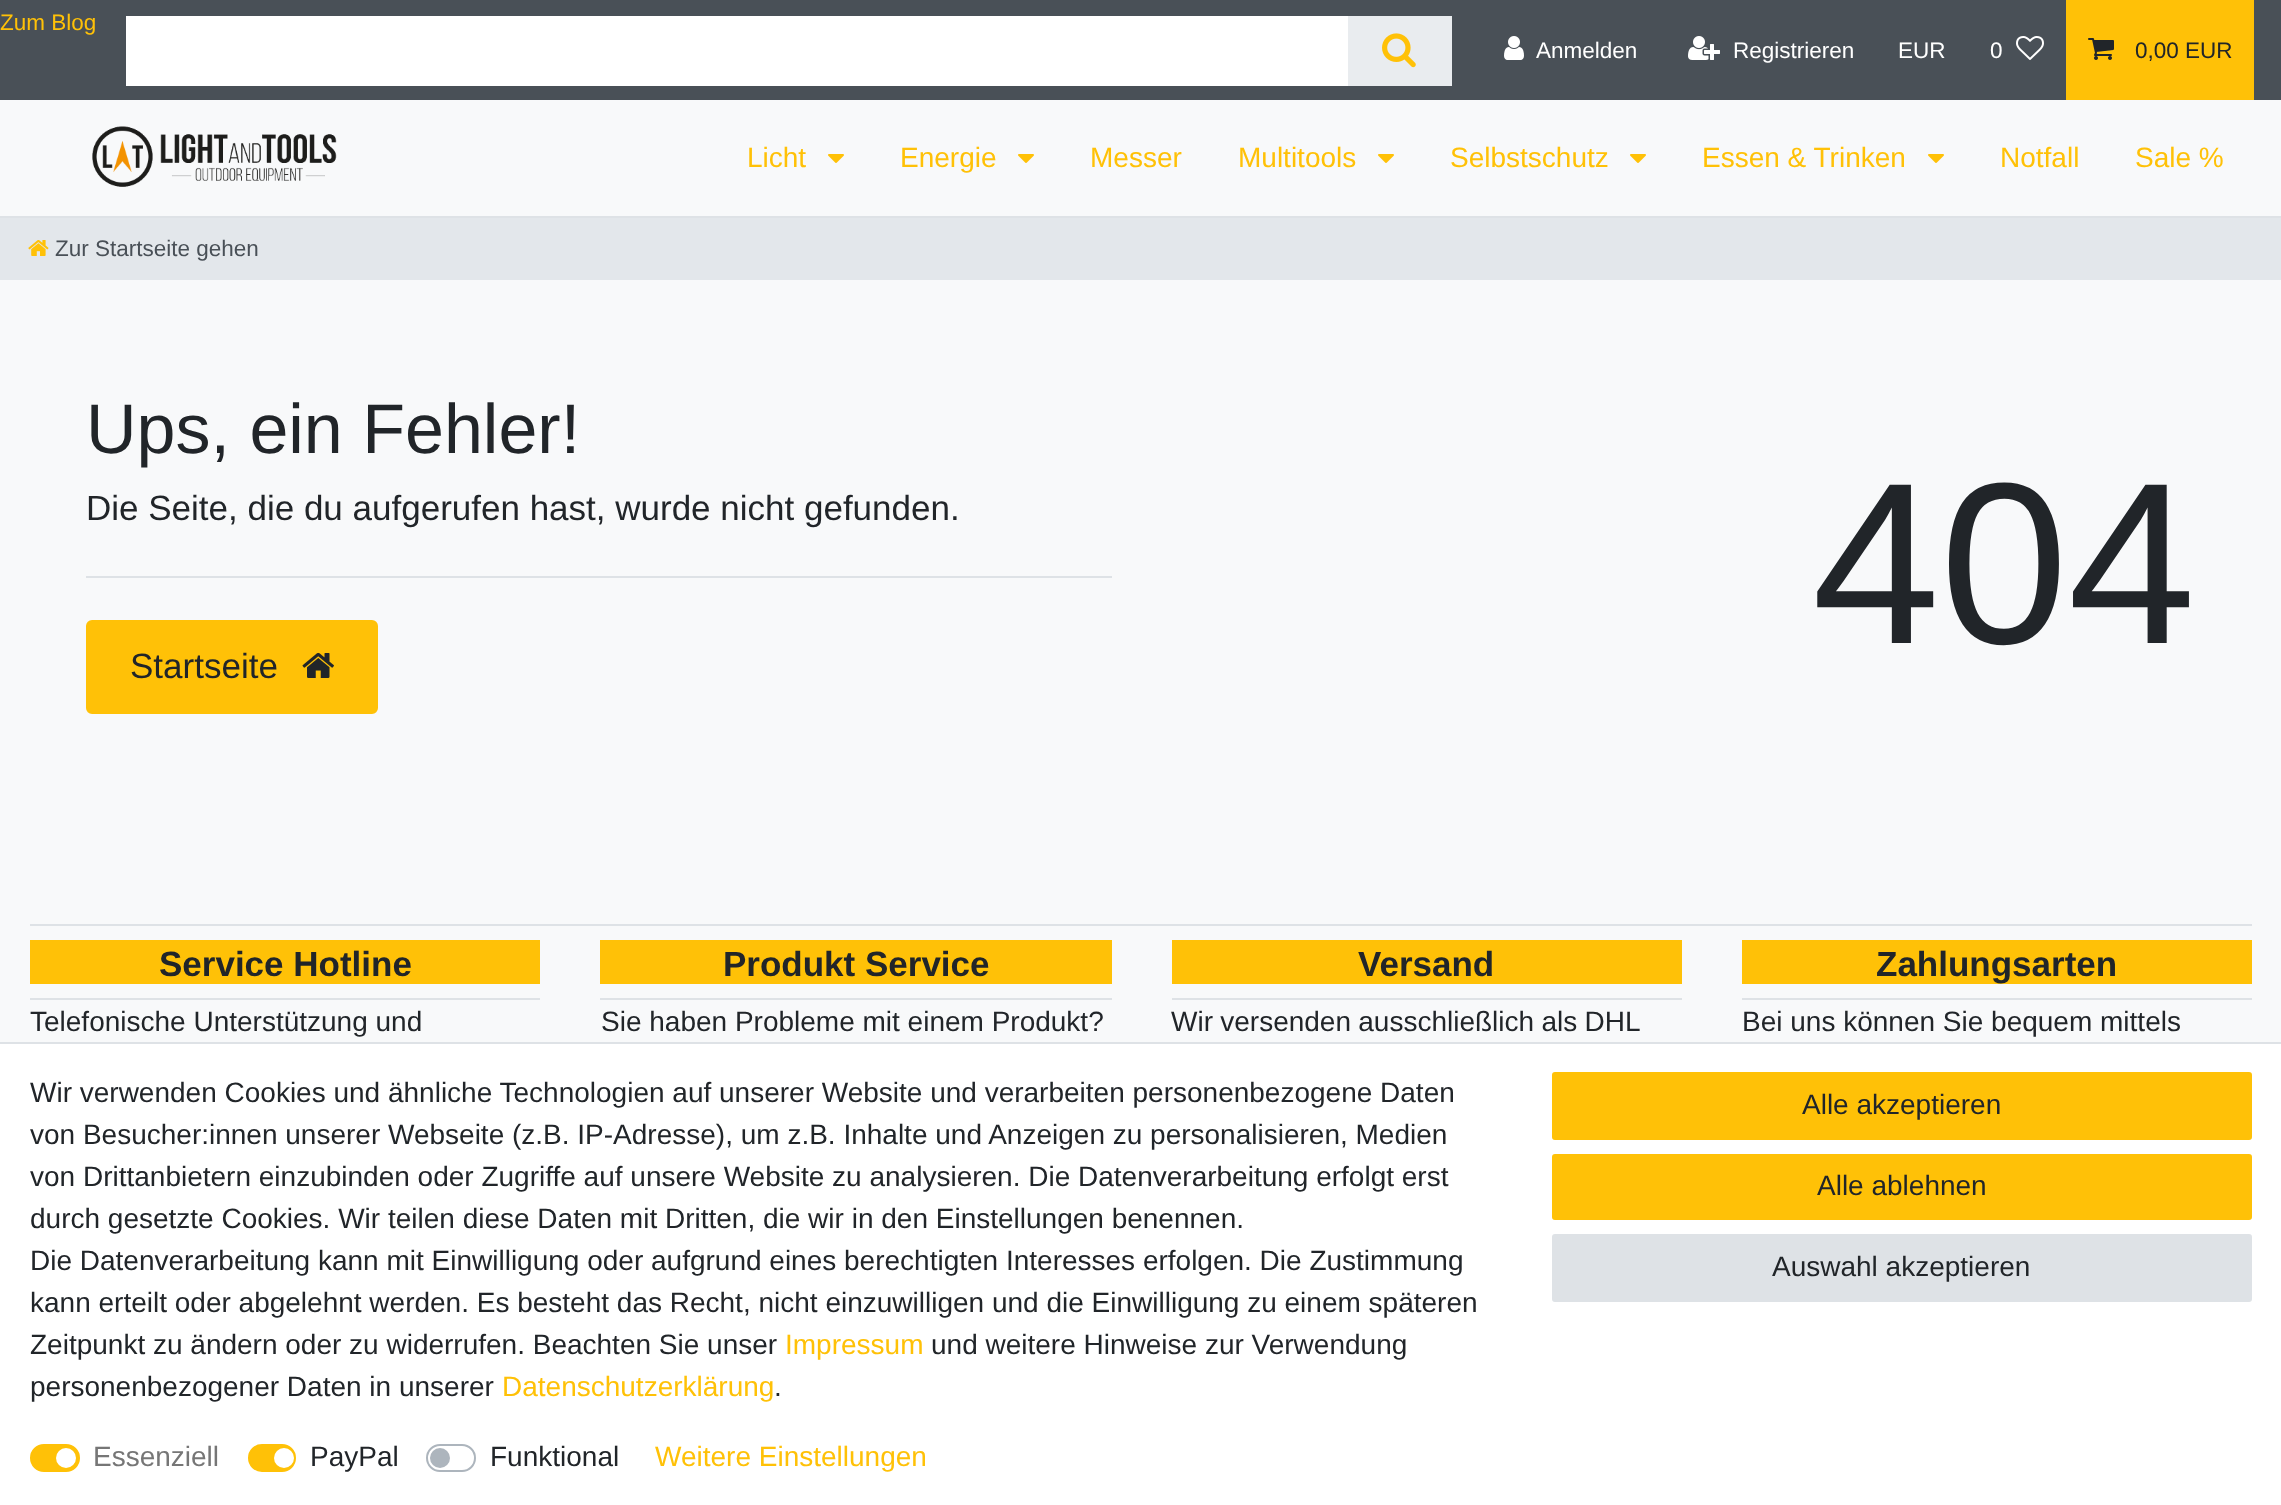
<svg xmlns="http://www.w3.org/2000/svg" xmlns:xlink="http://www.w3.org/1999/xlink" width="2281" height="1505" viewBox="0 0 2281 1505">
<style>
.cls-1{font:22.5px Liberation Sans;fill:#ffc107}
.cls-2{font:22.5px Liberation Sans;fill:#ffffff}
.cls-3{font:22.5px Liberation Sans;fill:#212529}
.cls-4{font:28px Liberation Sans;fill:#ffc107}
.cls-5{font:22.5px Liberation Sans;fill:#495057}
.cls-6{font:70px Liberation Sans;fill:#212529}
.cls-7{font:35px Liberation Sans;fill:#212529}
.cls-8{font:230px Liberation Sans;fill:#212529}
.cls-9{font:bold 35px Liberation Sans;fill:#212529}
.cls-10{font:28px Liberation Sans;fill:#212529}
.cls-11{font:28px Liberation Sans;fill:#767676}
</style>
<rect width="100%" height="100%" fill="#f8f9fa"/>
<rect fill="#495057" x="0" y="0" width="2281" height="100"/>
<rect fill="#ffffff" x="126" y="16" width="1222" height="70"/>
<rect fill="#e9ecef" x="1348" y="16" width="104" height="70"/>
<image xlink:href="image0.png" x="1382" y="33" width="34" height="35"/>
<image xlink:href="image1.png" x="1504" y="36" width="20" height="24"/>
<image xlink:href="image2.png" x="1688" y="36" width="32" height="24"/>
<image xlink:href="image3.png" x="2016" y="36" width="28" height="24"/>
<rect fill="#ffc107" x="2066" y="0" width="188" height="100"/>
<image xlink:href="image4.png" x="2088" y="38" width="26" height="22"/>
<rect fill="#dee2e6" x="0" y="216" width="2281" height="2"/>
<image xlink:href="image5.png" x="92" y="126" width="245" height="61"/>
<image xlink:href="image6.png" x="828" y="154" width="16" height="9"/>
<image xlink:href="image6.png" x="1018" y="154" width="16" height="9"/>
<image xlink:href="image6.png" x="1378" y="154" width="16" height="9"/>
<image xlink:href="image6.png" x="1630" y="154" width="16" height="9"/>
<image xlink:href="image6.png" x="1928" y="154" width="16" height="9"/>
<rect fill="#e3e7eb" x="0" y="218" width="2281" height="62"/>
<image xlink:href="image7.png" x="28" y="240" width="21" height="16"/>
<rect fill="#dee2e6" x="86" y="576" width="1026" height="2"/>
<rect fill="#ffc107" stroke="#ffc107" stroke-width="2" x="87" y="621" width="290" height="92" rx="5"/>
<image xlink:href="image8.png" x="302" y="652" width="32" height="26"/>
<rect fill="#dee2e6" x="30" y="924" width="2222" height="2"/>
<rect fill="#ffc107" x="30" y="940" width="510" height="44"/>
<rect fill="#dee2e6" x="30" y="998" width="510" height="2"/>
<rect fill="#ffc107" x="600" y="940" width="512" height="44"/>
<rect fill="#dee2e6" x="600" y="998" width="512" height="2"/>
<rect fill="#ffc107" x="1172" y="940" width="510" height="44"/>
<rect fill="#dee2e6" x="1172" y="998" width="510" height="2"/>
<rect fill="#ffc107" x="1742" y="940" width="510" height="44"/>
<rect fill="#dee2e6" x="1742" y="998" width="510" height="2"/>
<rect fill="#ffffff" x="0" y="1044" width="2281" height="461"/>
<rect fill="#dee2e6" x="0" y="1042" width="2281" height="2"/>
<rect fill="#ffc107" stroke="#ffc107" stroke-width="2" x="31" y="1445" width="48" height="26" rx="13"/>
<circle fill="#ffffff" cx="66" cy="1458" r="10"/>
<rect fill="#ffc107" stroke="#ffc107" stroke-width="2" x="249" y="1445" width="46" height="26" rx="13"/>
<circle fill="#ffffff" cx="284" cy="1458" r="10"/>
<rect fill="none" stroke="#adb5bd" stroke-width="2" x="427" y="1445" width="48" height="26" rx="13"/>
<circle fill="#adb5bd" cx="440" cy="1458" r="10"/>
<rect fill="#ffc107" stroke="#ffc107" stroke-width="2" x="1553" y="1073" width="698" height="66" rx="2"/>
<rect fill="#ffc107" stroke="#ffc107" stroke-width="2" x="1553" y="1155" width="698" height="64" rx="2"/>
<rect fill="#dee2e6" stroke="#dee2e6" stroke-width="2" x="1553" y="1235" width="698" height="66" rx="2"/>
<text class="cls-1" x="0" y="30">Zum Blog</text>
<text class="cls-2" x="1536" y="58">Anmelden</text>
<text class="cls-2" x="1733" y="58">Registrieren</text>
<text class="cls-2" x="1898" y="58">EUR</text>
<text class="cls-2" x="1990" y="58">0</text>
<text class="cls-3" x="2135" y="58">0,00 EUR</text>
<text class="cls-4" x="747" y="167">Licht</text>
<text class="cls-4" x="900" y="167">Energie</text>
<text class="cls-4" x="1090" y="167">Messer</text>
<text class="cls-4" x="1238" y="167">Multitools</text>
<text class="cls-4" x="1450" y="167">Selbstschutz</text>
<text class="cls-4" x="1702" y="167">Essen &amp; Trinken</text>
<text class="cls-4" x="2000" y="167">Notfall</text>
<text class="cls-4" x="2135" y="167">Sale %</text>
<text class="cls-5" x="55" y="256">Zur Startseite gehen</text>
<text class="cls-6" x="86" y="453">Ups, ein Fehler!</text>
<text class="cls-7" x="86" y="520">Die Seite, die du aufgerufen hast, wurde nicht gefunden.</text>
<text class="cls-7" x="130" y="678">Startseite</text>
<text class="cls-8" x="1812" y="643">404</text>
<text class="cls-9" x="159" y="976">Service Hotline</text>
<text class="cls-10" x="30" y="1031">Telefonische Unterstützung und</text>
<text class="cls-9" x="723" y="976">Produkt Service</text>
<text class="cls-10" x="601" y="1031">Sie haben Probleme mit einem Produkt?</text>
<text class="cls-9" x="1358" y="976">Versand</text>
<text class="cls-10" x="1171" y="1031" word-spacing="-0.5">Wir versenden ausschließlich als DHL</text>
<text class="cls-9" x="1876" y="976">Zahlungsarten</text>
<text class="cls-10" x="1742" y="1031">Bei uns können Sie bequem mittels</text>
<text class="cls-10"><tspan x="30" y="1102">Wir verwenden Cookies und ähnliche Technologien auf unserer Website und verarbeiten personenbezogene Daten</tspan><tspan x="30" y="1144">von Besucher:innen unserer Webseite (z.B. IP-Adresse), um z.B. Inhalte und Anzeigen zu personalisieren, Medien</tspan><tspan x="30" y="1186">von Drittanbietern einzubinden oder Zugriffe auf unsere Website zu analysieren. Die Datenverarbeitung erfolgt erst</tspan><tspan x="30" y="1228">durch gesetzte Cookies. Wir teilen diese Daten mit Dritten, die wir in den Einstellungen benennen.</tspan><tspan x="30" y="1270">Die Datenverarbeitung kann mit Einwilligung oder aufgrund eines berechtigten Interesses erfolgen. Die Zustimmung</tspan><tspan x="30" y="1312">kann erteilt oder abgelehnt werden. Es besteht das Recht, nicht einzuwilligen und die Einwilligung zu einem späteren</tspan><tspan x="30" y="1354">Zeitpunkt zu ändern oder zu widerrufen. Beachten Sie unser</tspan></text>
<text class="cls-4" x="785" y="1354">Impressum</text>
<text class="cls-10" x="931" y="1354">und weitere Hinweise zur Verwendung</text>
<text class="cls-10" x="30" y="1396">personenbezogener Daten in unserer</text>
<text class="cls-4" x="502" y="1396">Datenschutzerklärung</text>
<text class="cls-10" x="774" y="1396">.</text>
<text class="cls-11" x="93" y="1466">Essenziell</text>
<text class="cls-10" x="310" y="1466">PayPal</text>
<text class="cls-10" x="490" y="1466">Funktional</text>
<text class="cls-4" x="655" y="1466">Weitere Einstellungen</text>
<text class="cls-10" x="1802" y="1114">Alle akzeptieren</text>
<text class="cls-10" x="1817" y="1195">Alle ablehnen</text>
<text class="cls-10" x="1772" y="1276">Auswahl akzeptieren</text>
</svg>
